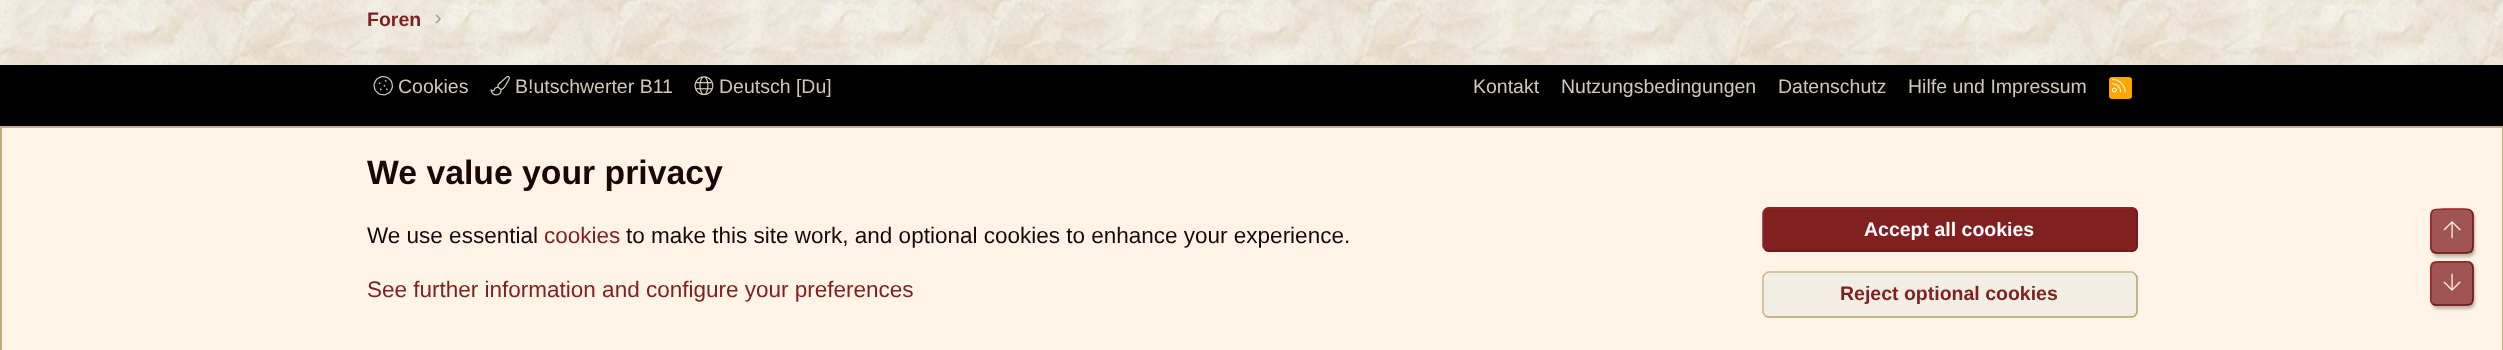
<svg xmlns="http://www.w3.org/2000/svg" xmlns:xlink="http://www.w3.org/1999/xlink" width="2503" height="350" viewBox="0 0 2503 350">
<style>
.cls-1{font:bold 19.5px Liberation Sans;fill:#802020}
.cls-2{font:19.5px Liberation Sans;fill:#d1c8bb}
.cls-3{font:bold 33.75px Liberation Sans;fill:#1a0606}
.cls-4{font:22.5px Liberation Sans;fill:#1a0606}
.cls-5{font:22.5px Liberation Sans;fill:#802020}
.cls-6{font:bold 19.5px Liberation Sans;fill:#ffffff}
</style>
<defs>
<clipPath id="clip1"><path d="M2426 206H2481V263H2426ZM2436 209H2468C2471.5 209 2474 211.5 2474 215V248C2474 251.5 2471.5 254 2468 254H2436C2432.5 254 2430 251.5 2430 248V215C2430 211.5 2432.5 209 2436 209Z" clip-rule="evenodd"/></clipPath>
<clipPath id="clip2"><path d="M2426 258H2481V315H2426ZM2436 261H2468C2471.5 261 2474 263.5 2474 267V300C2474 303.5 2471.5 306 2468 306H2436C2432.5 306 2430 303.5 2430 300V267C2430 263.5 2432.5 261 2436 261Z" clip-rule="evenodd"/></clipPath>
</defs>
<rect width="100%" height="100%" fill="#ffffff"/>
<image xlink:href="image0.png" x="0" y="0" width="2503" height="65"/>
<image xlink:href="image1.png" x="435" y="14" width="6" height="10"/>
<rect fill="#000000" x="0" y="65" width="2503" height="61"/>
<image xlink:href="image2.png" x="373" y="75" width="20" height="21"/>
<image xlink:href="image3.png" x="490" y="76" width="20" height="20"/>
<image xlink:href="image4.png" x="694" y="76" width="20" height="20"/>
<rect fill="#ffa500" x="2109" y="77" width="23" height="22" rx="3"/>
<image xlink:href="image5.png" x="2112" y="78" width="14" height="15"/>
<rect fill="#fff4e5" x="2" y="128" width="2500" height="222"/>
<rect fill="#c5b387" x="0" y="126" width="2503" height="2"/>
<rect fill="#c0ad7d" x="2502" y="126" width="1" height="224"/>
<rect fill="#c0ad7d" x="0" y="126" width="2" height="224"/>
<rect fill="#802020" x="1763" y="207" width="375" height="45" rx="6"/>
<path fill="none" stroke="#6c1b1b" stroke-width="1.5" d="M2135 209.5C2136 210.5 2137 211.5 2137 213V246C2137 247.5 2136 248.5 2135 249.5C2134 250.5 2133 251 2131.5 251H1768.5C1767 251 1766 250.5 1765 249.5"/>
<path fill="none" stroke="#942525" stroke-width="1.5" d="M1765 249.5C1764 248.5 1763 247.5 1763 246V213C1763 211.5 1764 210.5 1765 209.5C1766 208.5 1767 208 1768.5 208H2131.5C2133 208 2134 208.5 2135 209.5"/>
<rect fill="#f2eee4" x="1763" y="272" width="375" height="46" rx="6"/>
<path fill="none" stroke="#b8a26c" stroke-width="1.5" d="M2135 274C2136 275 2137 276 2137 277.5V312C2137 313.5 2136 314.5 2135 315.5C2134 316.5 2133 317 2131.5 317H1768.5C1767 317 1766 316.5 1765 315.5"/>
<path fill="none" stroke="#c9b88e" stroke-width="1.5" d="M1765 315.5C1764 314.5 1763 313.5 1763 312V277.5C1763 276 1764 275 1765 274C1766 273 1767 272 1768.5 272H2131.5C2133 272 2134 273 2135 274"/>
<g clip-path="url(#clip1)">
<rect fill="#000000" fill-opacity="0.25" filter="blur(1.5px)" x="2432" y="212" width="43" height="45" rx="6"/>
</g>
<rect fill="#802020" fill-opacity="0.75" x="2430" y="209" width="44" height="45" rx="6"/>
<path fill="none" stroke="#6c1b1b" stroke-width="1.5" d="M2471 211C2473.5 213 2473 217 2473 220V231C2473 255.5 2476 253 2452 253H2441C2438.5 253 2434.5 253.5 2432.5 251"/>
<path fill="none" stroke="#942525" stroke-width="1.5" d="M2432.5 251C2430 249 2431 245 2431 242V231C2431 206.5 2427.5 209 2452 209H2462C2465 209 2469 208.5 2471 211"/>
<image xlink:href="image6.png" x="2443" y="221" width="18" height="18"/>
<g clip-path="url(#clip2)">
<rect fill="#000000" fill-opacity="0.25" filter="blur(1.5px)" x="2432" y="264" width="43" height="45" rx="6"/>
</g>
<rect fill="#802020" fill-opacity="0.75" x="2430" y="261" width="44" height="45" rx="6"/>
<path fill="none" stroke="#6c1b1b" stroke-width="1.5" d="M2471 263.5C2473.5 265.5 2473 269.5 2473 272.5V283.5C2473 308 2476 305 2452 305H2441C2438.5 305 2434.5 306 2432.5 303.5"/>
<path fill="none" stroke="#942525" stroke-width="1.5" d="M2432.5 303.5C2430 301.5 2431 297.5 2431 294.5V283.5C2431 259 2427.5 262 2452 262H2462C2465 262 2469 261 2471 263.5"/>
<image xlink:href="image7.png" x="2443" y="273" width="18" height="18"/>
<text class="cls-1" x="367" y="26">Foren</text>
<text class="cls-2" x="398" y="93">Cookies</text>
<text class="cls-2" x="515" y="93">B!utschwerter B11</text>
<text class="cls-2" x="719" y="93">Deutsch [Du]</text>
<text class="cls-2" x="1473" y="93">Kontakt</text>
<text class="cls-2" x="1561" y="93">Nutzungsbedingungen</text>
<text class="cls-2" x="1778" y="93">Datenschutz</text>
<text class="cls-2" x="1908" y="93">Hilfe und Impressum</text>
<text class="cls-3" x="367" y="184">We value your privacy</text>
<text class="cls-4" x="367" y="243">We use essential</text>
<text class="cls-5" x="544" y="243">cookies</text>
<text class="cls-4" x="626" y="243">to make this site work, and optional cookies to enhance your experience.</text>
<text class="cls-5" x="367" y="297">See further information and configure your preferences</text>
<text class="cls-6" x="1864" y="236">Accept all cookies</text>
<text class="cls-1" x="1840" y="300">Reject optional cookies</text>
</svg>
